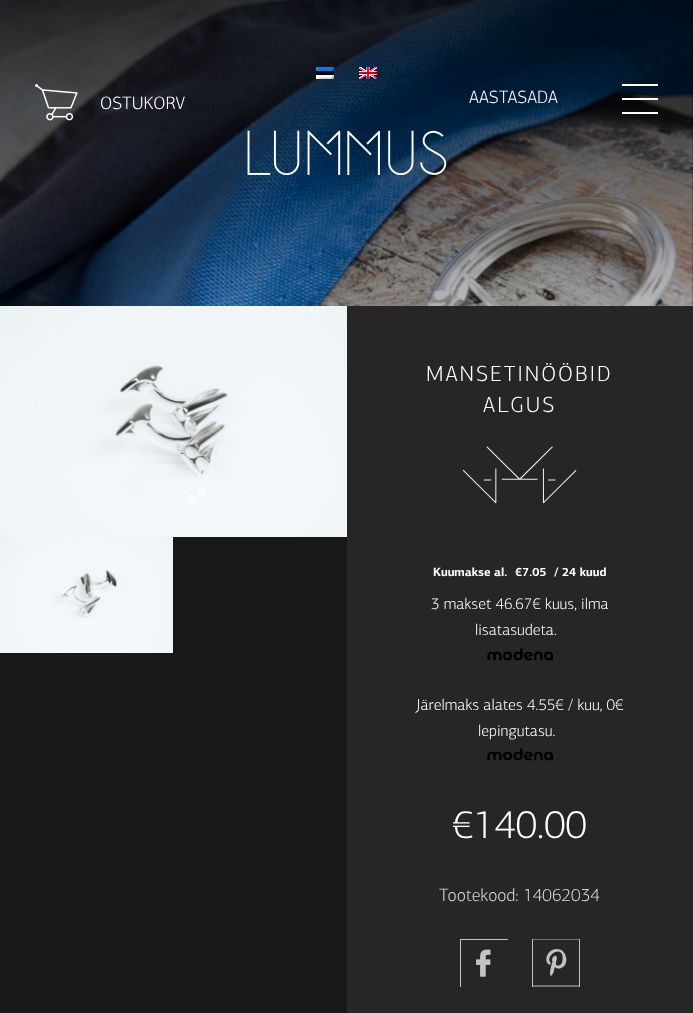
<svg xmlns="http://www.w3.org/2000/svg" xmlns:xlink="http://www.w3.org/1999/xlink" width="693" height="1013" viewBox="0 0 693 1013">
<style>
.cls-1{font:300 18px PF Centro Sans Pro;fill:#ffffff}
.cls-2{font:300 22px PF Centro Sans Pro;letter-spacing:2px;fill:#ffffff}
.cls-3{font:bold 12px PF Centro Sans Pro;fill:#ffffff}
.cls-4{font:300 16px PF Centro Sans Pro;fill:#ffffff}
.cls-5{font:300 40px PF Centro Sans Pro;fill:#ffffff}
.cls-6{font:300 18px PF Centro Sans Pro;fill:#d5d5d5}
</style>
<defs>
<linearGradient id="g1" gradientUnits="userSpaceOnUse" x1="347" y1="0" x2="347" y2="462"><stop offset="0" stop-color="#000000" stop-opacity="0.8"/><stop offset="1" stop-color="#000000" stop-opacity="0"/></linearGradient>
</defs>
<rect width="100%" height="100%" fill="#191818"/>
<image xlink:href="image0.png" x="0" y="0" width="693" height="306"/>
<rect fill="url(#g1)" x="0" y="0" width="693" height="306"/>
<image xlink:href="image1.png" x="316" y="67" width="18" height="12"/>
<image xlink:href="image2.png" x="359" y="67" width="18" height="12"/>
<image xlink:href="image3.png" x="35" y="84" width="43" height="37"/>
<rect fill="#ffffff" x="622" y="84" width="36" height="2"/>
<rect fill="#ffffff" x="622" y="98" width="36" height="2"/>
<rect fill="#ffffff" x="622" y="112" width="36" height="2"/>
<image xlink:href="image4.png" x="247" y="130" width="200" height="45"/>
<image xlink:href="image5.png" x="0" y="306" width="347" height="231"/>
<rect fill="#000000" filter="blur(0.5px)" x="0" y="537" width="173" height="116"/>
<image xlink:href="image6.png" x="0" y="537" width="173" height="116"/>
<rect fill="#272525" x="347" y="306" width="346" height="707"/>
<image xlink:href="image7.png" x="462" y="446" width="115" height="58"/>
<image xlink:href="image8.png" x="487" y="648" width="66" height="13"/>
<image xlink:href="image8.png" x="487" y="748" width="66" height="13"/>
<image xlink:href="image9.png" x="460" y="939" width="48" height="48"/>
<image xlink:href="image10.png" x="532" y="939" width="48" height="48"/>
<text class="cls-1" x="100" y="109">OSTUKORV</text>
<text class="cls-1" x="469" y="103">AASTASADA</text>
<text class="cls-2" x="426" y="381">MANSETINÖÖBID</text>
<text class="cls-2" x="483" y="412">ALGUS</text>
<text class="cls-3" x="433" y="576">Kuumakse al.</text>
<text class="cls-3" x="515" y="576">€7.05</text>
<text class="cls-3" x="554" y="576">/ 24 kuud</text>
<text class="cls-4" x="431" y="609">3 makset 46.67€ kuus, ilma</text>
<text class="cls-4" x="475" y="635">lisatasudeta.</text>
<text class="cls-4" x="416" y="710">Järelmaks alates 4.55€ / kuu, 0€</text>
<text class="cls-4" x="478" y="736">lepingutasu.</text>
<text class="cls-5" x="452" y="838">€140.00</text>
<text class="cls-6" x="439" y="901">Tootekood: 14062034</text>
</svg>
